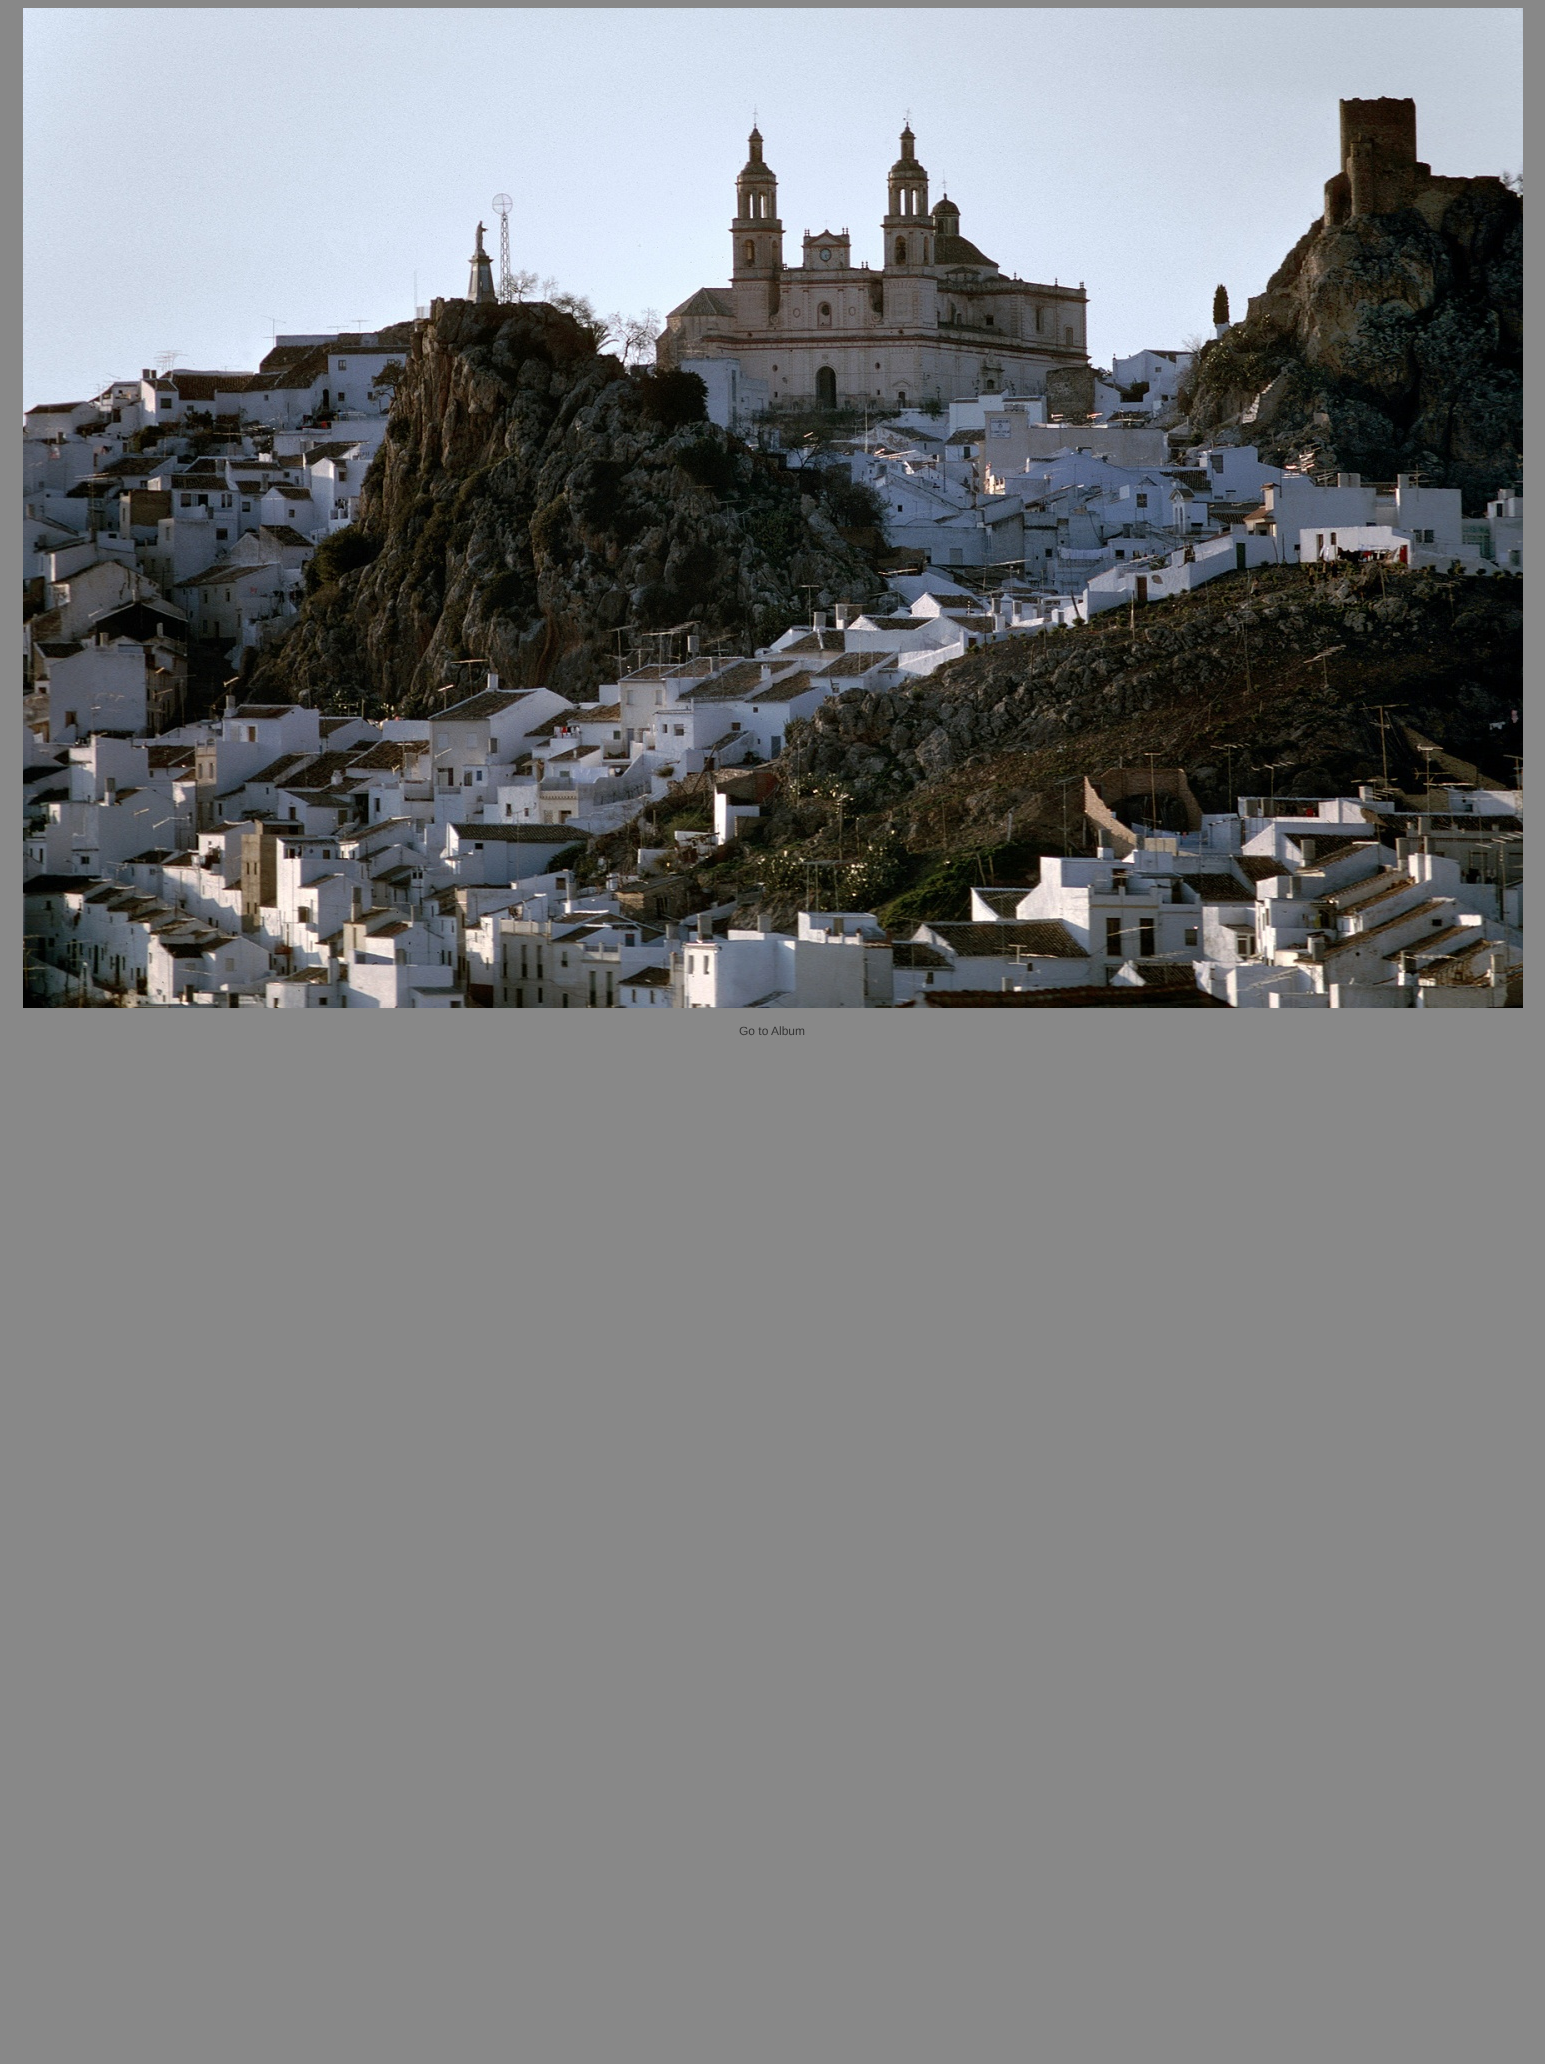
<svg xmlns="http://www.w3.org/2000/svg" xmlns:xlink="http://www.w3.org/1999/xlink" width="1545" height="2064" viewBox="0 0 1545 2064">
<style>
.cls-1{font:12px Liberation Sans;fill:#353535}
</style>
<rect width="100%" height="100%" fill="#888888"/>
<image xlink:href="image0.png" x="23" y="8" width="1500" height="1000"/>
<text class="cls-1" x="739" y="1035">Go to Album</text>
</svg>
